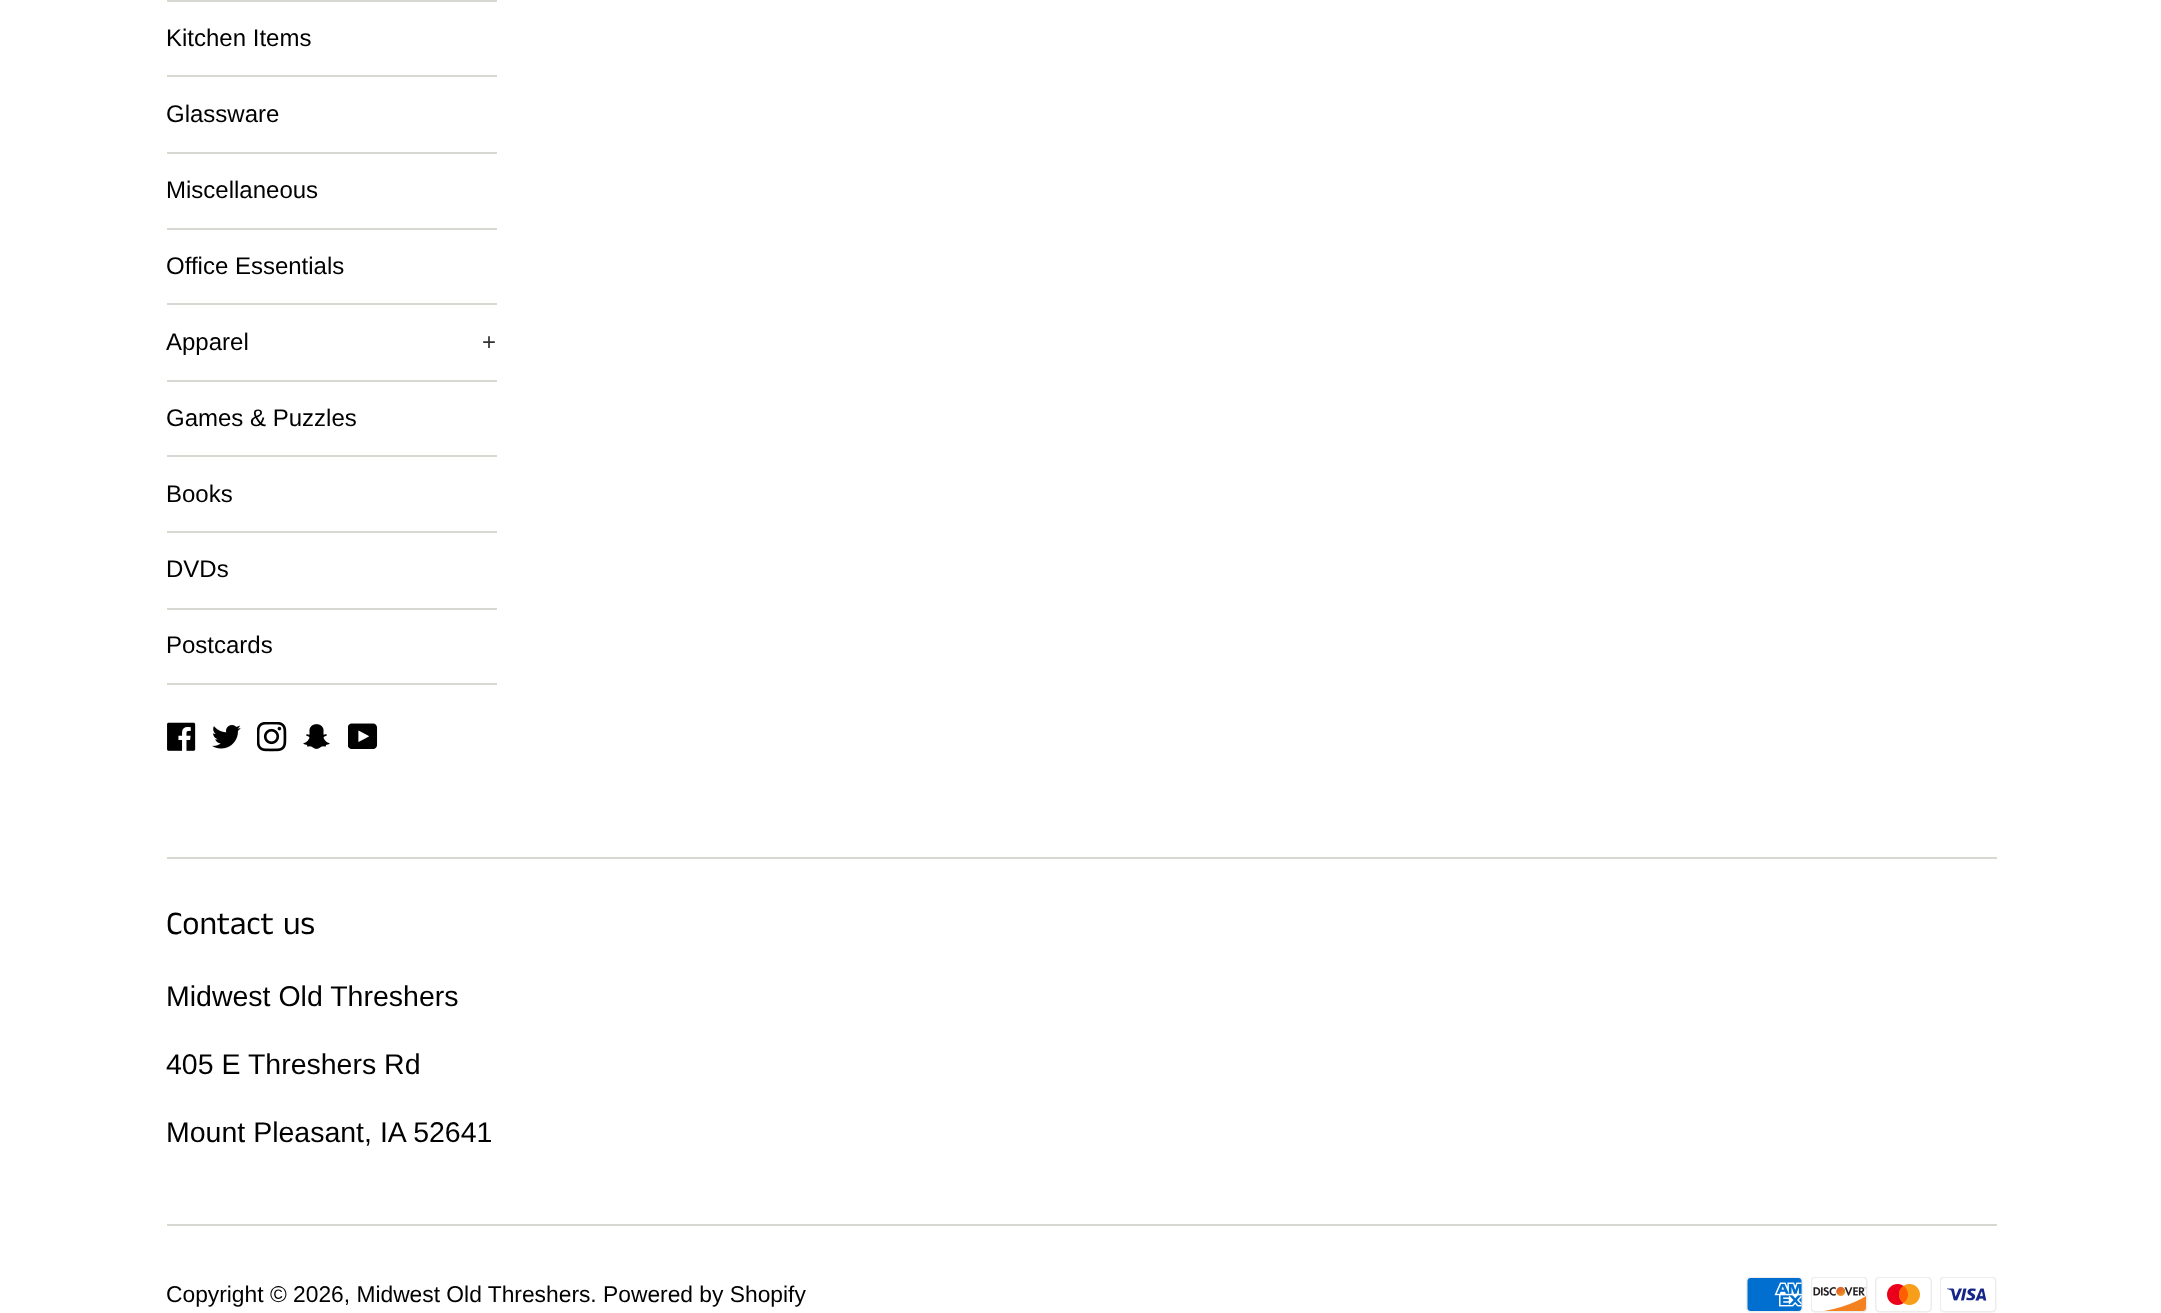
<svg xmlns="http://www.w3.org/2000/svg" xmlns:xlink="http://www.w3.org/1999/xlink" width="2161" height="1313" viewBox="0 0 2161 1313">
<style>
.cls-1{font:24px Arimo;fill:#000000}
.cls-2{font:24px Arimo;fill:#333333}
.cls-3{font:33px Anek Tamil;fill:#000000}
.cls-4{font:28.5px Arimo;fill:#000000}
.cls-5{font:22.8px Arimo;fill:#000000}
</style>
<rect width="100%" height="100%" fill="#ffffff"/>
<rect fill="#d7d8d2" x="167" y="0" width="330" height="2"/>
<rect fill="#d7d8d2" x="167" y="75" width="330" height="2"/>
<rect fill="#d7d8d2" x="167" y="152" width="330" height="2"/>
<rect fill="#d7d8d2" x="167" y="228" width="330" height="2"/>
<rect fill="#d7d8d2" x="167" y="303" width="330" height="2"/>
<rect fill="#d7d8d2" x="167" y="380" width="330" height="2"/>
<rect fill="#d7d8d2" x="167" y="455" width="330" height="2"/>
<rect fill="#d7d8d2" x="167" y="531" width="330" height="2"/>
<rect fill="#d7d8d2" x="167" y="608" width="330" height="2"/>
<rect fill="#d7d8d2" x="167" y="683" width="330" height="2"/>
<image xlink:href="image0.png" x="167" y="722" width="29" height="29"/>
<image xlink:href="image1.png" x="212" y="725" width="29" height="24"/>
<image xlink:href="image2.png" x="257" y="722" width="30" height="30"/>
<image xlink:href="image3.png" x="303" y="724" width="27" height="25"/>
<image xlink:href="image4.png" x="348" y="723" width="30" height="26"/>
<rect fill="#d7d8d2" x="167" y="857" width="1830" height="2"/>
<rect fill="#d7d8d2" x="167" y="1224" width="1830" height="2"/>
<image xlink:href="image5.png" x="1746" y="1277" width="57" height="36"/>
<image xlink:href="image6.png" x="1811" y="1277" width="57" height="36"/>
<image xlink:href="image7.png" x="1875" y="1277" width="57" height="36"/>
<image xlink:href="image8.png" x="1940" y="1277" width="57" height="36"/>
<text class="cls-1" x="166" y="46">Kitchen Items</text>
<text class="cls-1" x="166" y="122">Glassware</text>
<text class="cls-1" x="166" y="198">Miscellaneous</text>
<text class="cls-1" x="166" y="274">Office Essentials</text>
<text class="cls-1" x="166" y="350">Apparel</text>
<text class="cls-2" x="482" y="350">+</text>
<text class="cls-1" x="166" y="426">Games &amp; Puzzles</text>
<text class="cls-1" x="166" y="502">Books</text>
<text class="cls-1" x="166" y="577">DVDs</text>
<text class="cls-1" x="166" y="653">Postcards</text>
<text class="cls-3" x="166" y="934">Contact us</text>
<text class="cls-4" x="166" y="1006">Midwest Old Threshers</text>
<text class="cls-4" x="166" y="1074">405 E Threshers Rd</text>
<text class="cls-4" x="166" y="1142">Mount Pleasant, IA 52641</text>
<text class="cls-5" x="166" y="1302">Copyright © 2026, Midwest Old Threshers. Powered by Shopify</text>
</svg>
